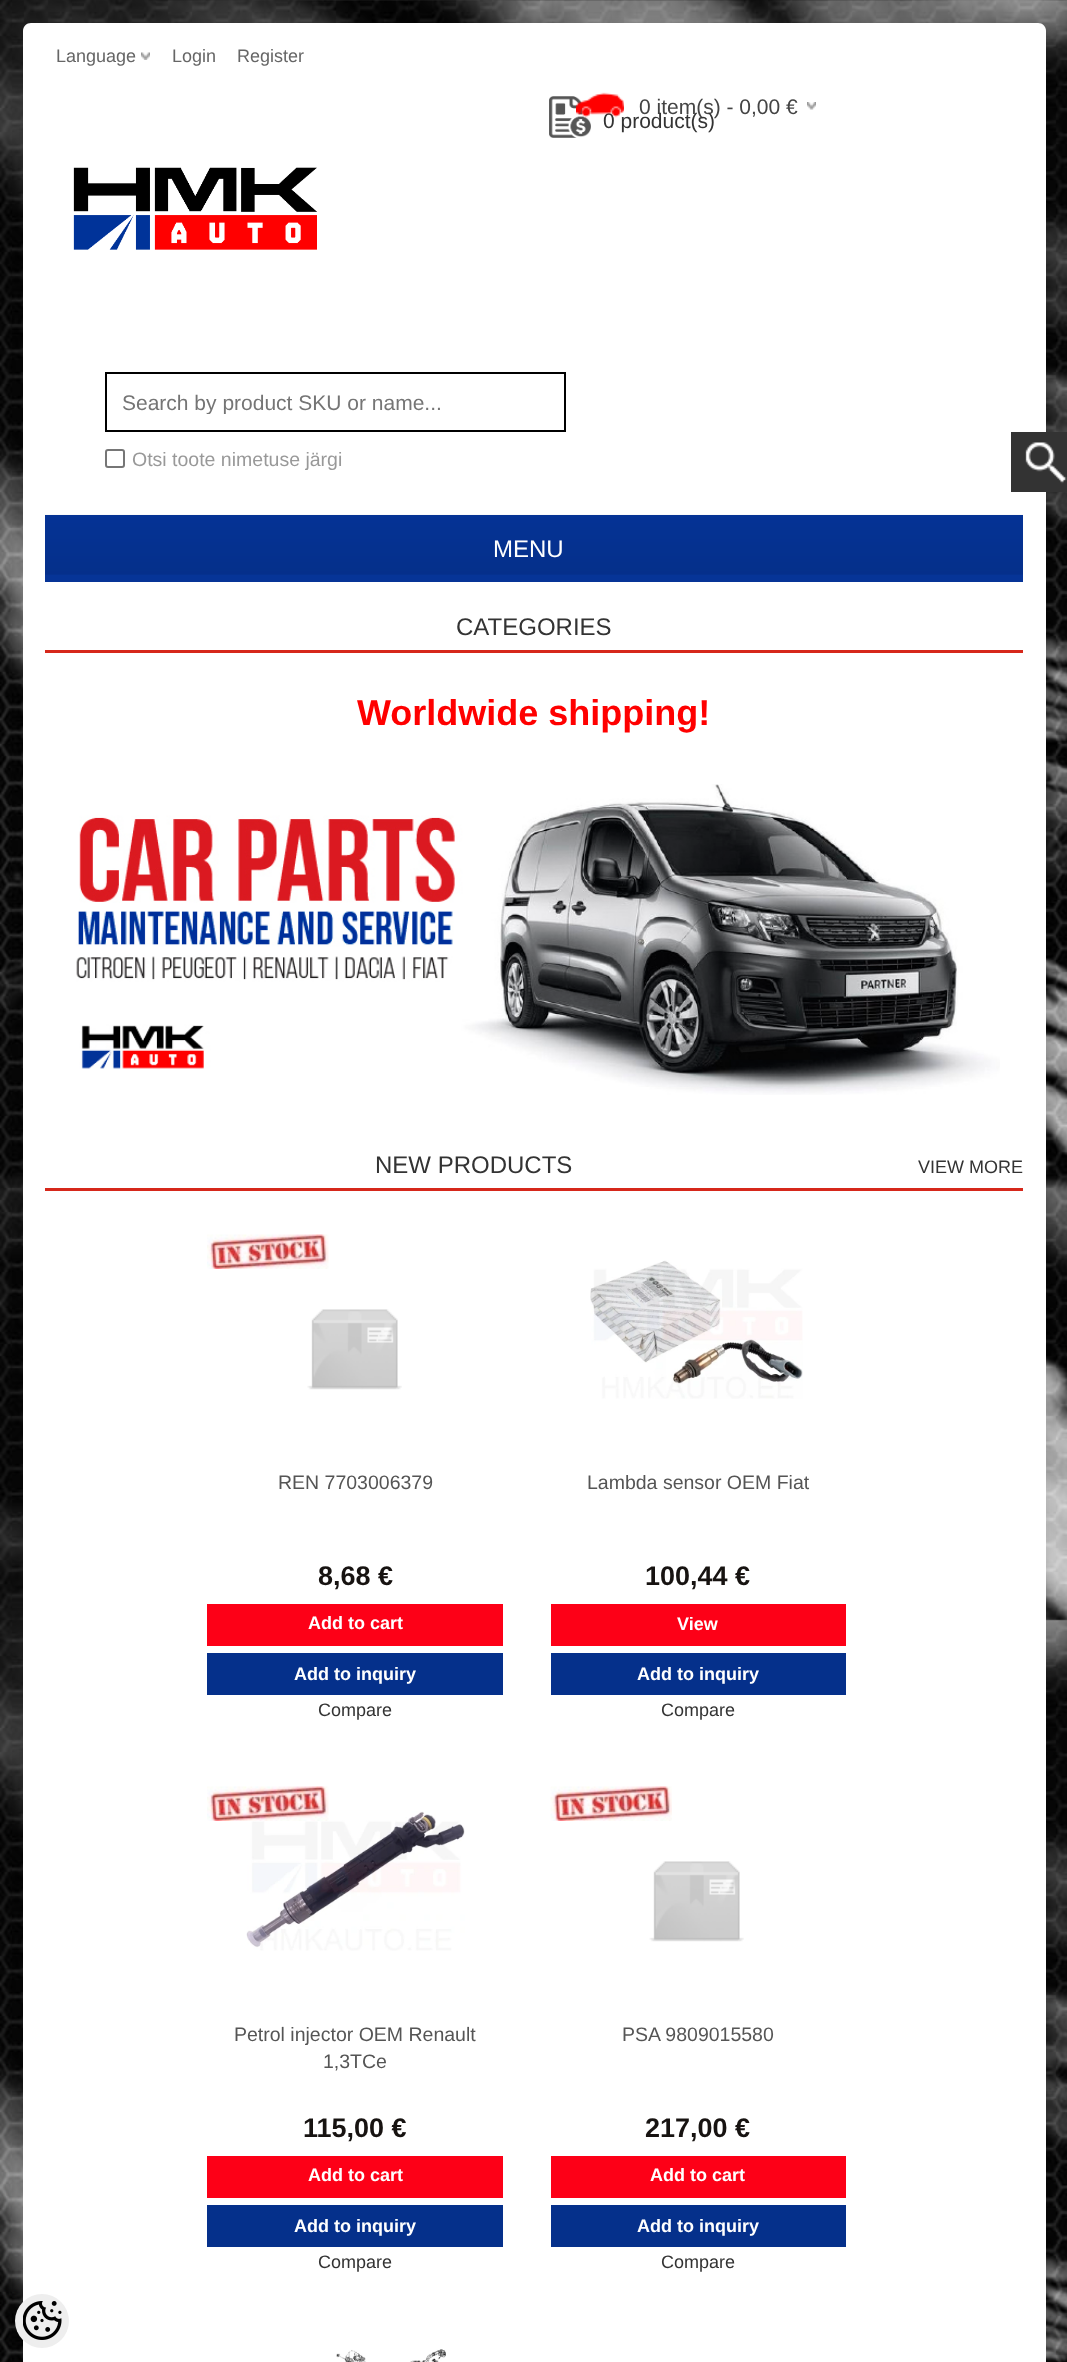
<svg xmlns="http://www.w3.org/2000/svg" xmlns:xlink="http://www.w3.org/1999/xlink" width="1067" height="2362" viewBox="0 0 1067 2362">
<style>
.cls-1{font:18px Liberation Sans;fill:#666666}
.cls-2{font:21px Liberation Sans;fill:#444444}
.cls-3{font:21px Liberation Sans;fill:#333333}
.cls-4{font:21px Liberation Sans;fill:#757575}
.cls-5{font:19.5px Liberation Sans;fill:#999999}
.cls-6{font:24px Liberation Sans;fill:#ffffff}
.cls-7{font:24px Liberation Sans;fill:#333333}
.cls-8{font:bold 36px Liberation Sans;fill:#ff0000}
.cls-9{font:18px Liberation Sans;fill:#333333}
.cls-10{font:19.5px Liberation Sans;fill:#555555}
.cls-11{font:bold 27px Liberation Sans;fill:#171311}
.cls-12{font:bold 18px Liberation Sans;fill:#ffffff}
</style>
<defs>
<clipPath id="clip1"><rect x="122" y="390" width="427" height="24"/></clipPath>
</defs>
<rect width="100%" height="100%" fill="#ffffff"/>
<image xlink:href="image0.png" x="0" y="0" width="1067" height="2362"/>
<rect fill="#000000" fill-opacity="0.08" filter="blur(6px)" x="23" y="23" width="1023" height="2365" rx="8"/>
<path fill="#ffffff" d="M31 23H1038C1042.5 23 1046 26.5 1046 31V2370H23V31C23 26.5 26.5 23 31 23Z"/>
<image xlink:href="image1.png" x="141" y="52" width="9" height="8"/>
<image xlink:href="image3.png" x="807" y="102" width="9" height="8"/>
<image xlink:href="image4.png" x="549" y="96" width="42" height="42"/>
<image xlink:href="image5.png" x="73" y="167" width="244" height="83"/>
<rect fill="none" stroke="#000000" stroke-width="2" x="106" y="373" width="459" height="58"/>
<rect fill="#333333" x="1011" y="432" width="56" height="60"/>
<image xlink:href="image6.png" x="1025" y="442" width="42" height="42"/>
<rect fill="none" stroke="#767676" stroke-width="2" x="106" y="450" width="18" height="17" rx="2"/>
<rect fill="#063497" x="45" y="515" width="978" height="67"/>
<image xlink:href="image7.png" x="45" y="514" width="978" height="61"/>
<rect fill="#d6281b" x="45" y="650" width="978" height="3"/>
<image xlink:href="image8.png" x="76" y="784" width="924" height="311"/>
<rect fill="#d6281b" x="45" y="1188" width="978" height="3"/>
<image xlink:href="image9.png" x="207" y="1234" width="122" height="35"/>
<image xlink:href="image10.png" x="307" y="1309" width="95" height="81"/>
<rect fill="#fd0017" x="207" y="1604" width="296" height="42"/>
<rect fill="#05308b" x="207" y="1653" width="296" height="42"/>
<image xlink:href="image11.png" x="590" y="1260" width="213" height="139"/>
<rect fill="#fd0017" x="551" y="1604" width="295" height="42"/>
<rect fill="#05308b" x="551" y="1653" width="295" height="42"/>
<image xlink:href="image13.png" x="246" y="1811" width="219" height="140"/>
<image xlink:href="image12.png" x="207" y="1786" width="122" height="35"/>
<rect fill="#fd0017" x="207" y="2156" width="296" height="42"/>
<rect fill="#05308b" x="207" y="2205" width="296" height="42"/>
<image xlink:href="image14.png" x="550" y="1786" width="122" height="35"/>
<image xlink:href="image15.png" x="649" y="1861" width="95" height="81"/>
<rect fill="#fd0017" x="551" y="2156" width="295" height="42"/>
<rect fill="#05308b" x="551" y="2205" width="295" height="42"/>
<image xlink:href="image16.png" x="336" y="2349" width="110" height="13"/>
<circle fill="#eeeeee" cx="42" cy="2321" r="27"/>
<image xlink:href="image17.png" x="23" y="2301" width="39" height="39"/>
<text class="cls-1" x="56" y="62">Language</text>
<text class="cls-1" x="172" y="62">Login</text>
<text class="cls-1" x="237" y="62">Register</text>
<text class="cls-2" x="639" y="114">0 item(s) - 0,00 €</text>
<text class="cls-3" x="603" y="128">0 product(s)</text>
<image xlink:href="image2.png" x="576" y="92" width="48" height="26"/>
<g clip-path="url(#clip1)">
<text class="cls-4" x="122" y="410">Search by product SKU or name...</text>
</g>
<text class="cls-5" x="132" y="466">Otsi toote nimetuse järgi</text>
<text class="cls-6" x="493" y="557">MENU</text>
<text class="cls-7" x="456" y="635">CATEGORIES</text>
<text class="cls-8" x="357" y="725">Worldwide shipping!</text>
<text class="cls-7" x="375" y="1173">NEW PRODUCTS</text>
<text class="cls-9" x="918" y="1173">VIEW MORE</text>
<text class="cls-10" x="278" y="1489">REN 7703006379</text>
<text class="cls-11" x="318" y="1585">8,68 €</text>
<text class="cls-12" x="308" y="1629">Add to cart</text>
<text class="cls-12" x="294" y="1680">Add to inquiry</text>
<text class="cls-9" x="318" y="1716">Compare</text>
<text class="cls-10" x="587" y="1489">Lambda sensor OEM Fiat</text>
<text class="cls-11" x="645" y="1585">100,44 €</text>
<text class="cls-12" x="677" y="1630">View</text>
<text class="cls-12" x="637" y="1680">Add to inquiry</text>
<text class="cls-9" x="661" y="1716">Compare</text>
<text class="cls-10" x="234" y="2041">Petrol injector OEM Renault</text>
<text class="cls-10" x="323" y="2068">1,3TCe</text>
<text class="cls-11" x="303" y="2137">115,00 €</text>
<text class="cls-12" x="308" y="2181">Add to cart</text>
<text class="cls-12" x="294" y="2232">Add to inquiry</text>
<text class="cls-9" x="318" y="2268">Compare</text>
<text class="cls-10" x="622" y="2041">PSA 9809015580</text>
<text class="cls-11" x="645" y="2137">217,00 €</text>
<text class="cls-12" x="650" y="2181">Add to cart</text>
<text class="cls-12" x="637" y="2232">Add to inquiry</text>
<text class="cls-9" x="661" y="2268">Compare</text>
</svg>
